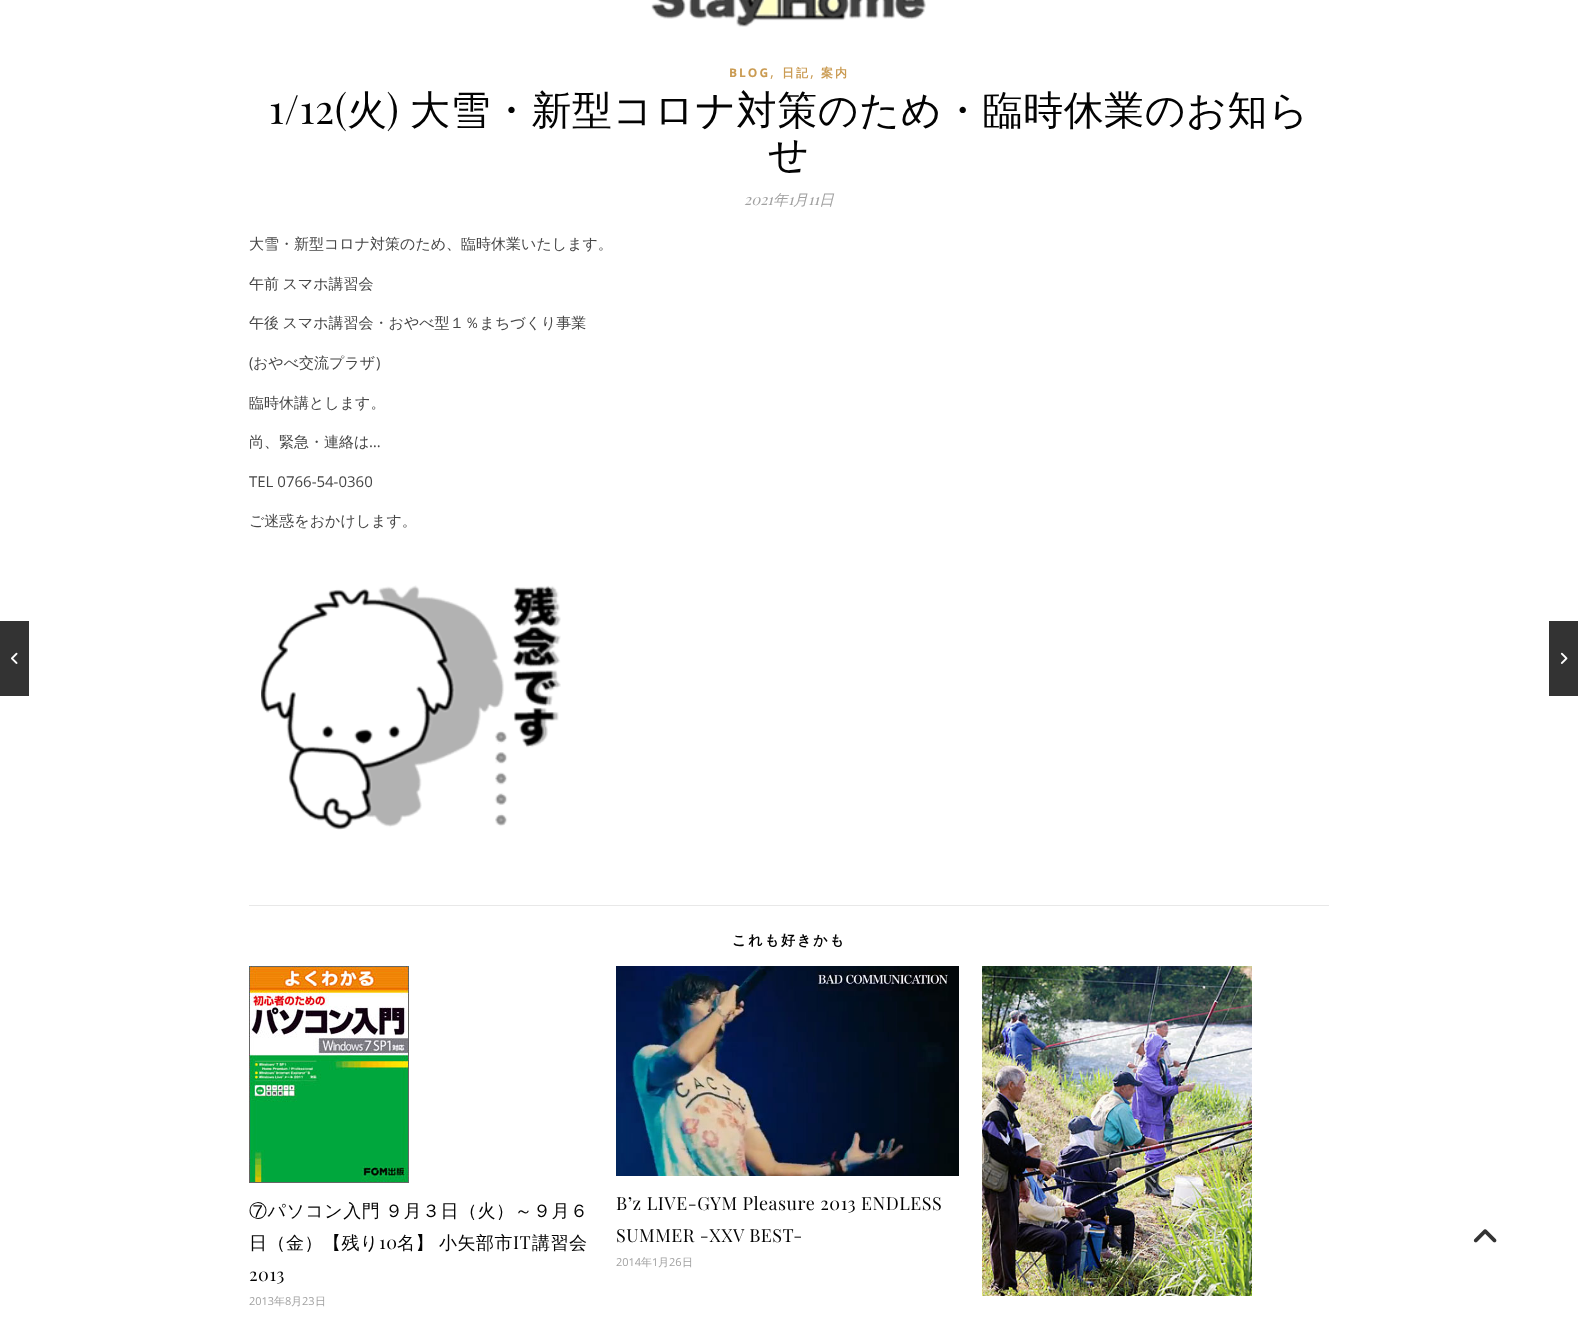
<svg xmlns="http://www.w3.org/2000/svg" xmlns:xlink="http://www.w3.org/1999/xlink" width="1578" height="1317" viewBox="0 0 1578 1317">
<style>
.cls-1{font:bold 12px Open Sans;letter-spacing:2px;fill:#ca9b52}
.cls-2{font:15px Open Sans;fill:#ca9b52}
.cls-3{font:bold 12px WenQuanYi Zen Hei;letter-spacing:2px;fill:#ca9b52}
.cls-4{font:40px Playfair Display;letter-spacing:0.5px;fill:#030303}
.cls-5{font:500 40px WenQuanYi Zen Hei;letter-spacing:0.5px;fill:#030303}
.cls-6{font:italic 15px Playfair Display;fill:#a1a1a1}
.cls-7{font:italic 500 15px WenQuanYi Zen Hei;fill:#a1a1a1}
.cls-8{font:500 15px WenQuanYi Zen Hei;fill:#464646}
.cls-9{font:15px Open Sans;fill:#464646}
.cls-10{font:bold 14px WenQuanYi Zen Hei;letter-spacing:2px;fill:#030303}
.cls-11{font:500 18px WenQuanYi Zen Hei;letter-spacing:0.5px;fill:#030303}
.cls-12{font:18px Playfair Display;letter-spacing:0.5px;fill:#030303}
.cls-13{font:11px Open Sans;fill:#a1a1a1}
.cls-14{font:500 11px WenQuanYi Zen Hei;fill:#a1a1a1}
</style>
<rect width="100%" height="100%" fill="#ffffff"/>
<image xlink:href="image0.png" x="651" y="0" width="275" height="27"/>
<image xlink:href="image1.png" x="261" y="585" width="300" height="245"/>
<rect fill="#e8e8e8" x="249" y="905" width="1080" height="1"/>
<rect fill="#333333" x="0" y="621" width="29" height="75"/>
<image xlink:href="image2.png" x="11" y="652" width="7" height="12"/>
<rect fill="#333333" x="1549" y="621" width="29" height="75"/>
<image xlink:href="image3.png" x="1560" y="652" width="8" height="12"/>
<image xlink:href="image4.png" x="249" y="966" width="160" height="217"/>
<image xlink:href="image5.png" x="616" y="966" width="343" height="210"/>
<image xlink:href="image6.png" x="982" y="966" width="270" height="330"/>
<image xlink:href="image7.png" x="1473" y="1229" width="24" height="14"/>
<text class="cls-1" x="729" y="77">BLOG</text>
<text class="cls-2" x="770" y="77">,</text>
<text class="cls-3" x="782" y="77">日記</text>
<text class="cls-2" x="810" y="77">,</text>
<text class="cls-3" x="821" y="77">案内</text>
<text class="cls-4" x="269" y="124">1/12(</text>
<text class="cls-5" x="347" y="124">火</text>
<text class="cls-4" x="387" y="124">)</text>
<text class="cls-5" x="410" y="124">大雪・新型コロナ対策のため・臨時休業のお知ら</text>
<text class="cls-5" x="768" y="168">せ</text>
<text class="cls-6" x="744" y="205">2021</text>
<text class="cls-7" x="773" y="205">年</text>
<text class="cls-6" x="788" y="205">1</text>
<text class="cls-7" x="793" y="205">月</text>
<text class="cls-6" x="808" y="205">11</text>
<text class="cls-7" x="819" y="205">日</text>
<text class="cls-8" x="249" y="249">大雪・新型コロナ対策のため、臨時休業いたします。</text>
<text class="cls-8" x="249" y="289" word-spacing="-1">午前 スマホ講習会</text>
<text class="cls-8" x="249" y="328" word-spacing="-1">午後 スマホ講習会・おやべ型１％まちづくり事業</text>
<text class="cls-9" x="249" y="368">(</text>
<text class="cls-8" x="253" y="368">おやべ交流プラザ</text>
<text class="cls-9" x="376" y="368">)</text>
<text class="cls-8" x="249" y="408">臨時休講とします。</text>
<text class="cls-8" x="249" y="447">尚、緊急・連絡は</text>
<text class="cls-9" x="369" y="447">…</text>
<text class="cls-9" x="249" y="487">TEL 0766-54-0360</text>
<text class="cls-8" x="249" y="526">ご迷惑をおかけします。</text>
<text class="cls-10" x="732" y="945">これも好きかも</text>
<text class="cls-11"><tspan x="249" y="1217" word-spacing="-1">⑦パソコン入門 ９月３日（火）～９月６</tspan><tspan x="249" y="1249">日（金）【残り</tspan></text>
<text class="cls-12" x="379" y="1249">10</text>
<text class="cls-11" x="397" y="1249" word-spacing="-1">名】 小矢部市</text>
<text class="cls-12" x="513" y="1249">IT</text>
<text class="cls-11" x="532" y="1249">講習会</text>
<text class="cls-12" x="249" y="1281">2013</text>
<text class="cls-13" x="249" y="1305">2013</text>
<text class="cls-14" x="274" y="1305">年</text>
<text class="cls-13" x="285" y="1305">8</text>
<text class="cls-14" x="291" y="1305">月</text>
<text class="cls-13" x="302" y="1305">23</text>
<text class="cls-14" x="315" y="1305">日</text>
<text class="cls-12"><tspan x="616" y="1210">B’z LIVE-GYM Pleasure 2013 ENDLESS</tspan><tspan x="616" y="1242">SUMMER -XXV BEST-</tspan></text>
<text class="cls-13" x="616" y="1266">2014</text>
<text class="cls-14" x="641" y="1266">年</text>
<text class="cls-13" x="652" y="1266">1</text>
<text class="cls-14" x="658" y="1266">月</text>
<text class="cls-13" x="669" y="1266">26</text>
<text class="cls-14" x="682" y="1266">日</text>
</svg>
